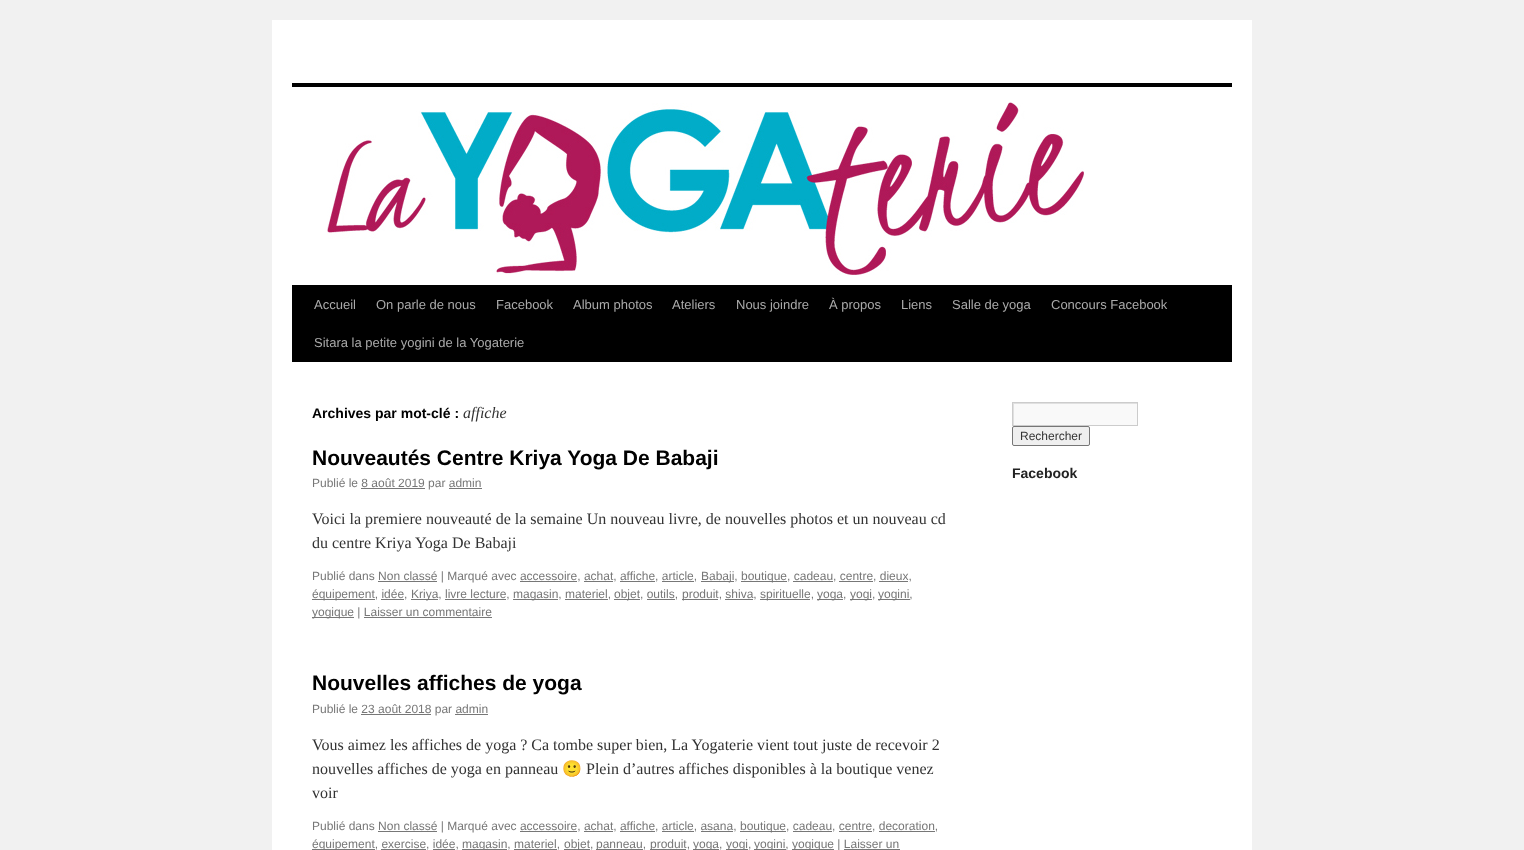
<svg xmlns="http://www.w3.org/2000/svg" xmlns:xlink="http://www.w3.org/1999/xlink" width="1524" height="850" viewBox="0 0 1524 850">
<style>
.cls-1{font:13px Liberation Sans;fill:#aaaaaa}
.cls-2{font:bold 14px Liberation Sans;fill:#000000}
.cls-3{font:italic 16px Liberation Serif;fill:#333333}
.cls-4{font:bold 21px Liberation Sans;fill:#000000}
.cls-5{font:12px Liberation Sans;fill:#777777}
.cls-6{font:16px Liberation Serif;fill:#333333}
.cls-7{font:16px Noto Color Emoji;fill:#333333}
.cls-8{font:12px Liberation Sans;fill:#333333}
.cls-9{font:bold 14px Liberation Sans;fill:#222222}
</style>
<defs>
<clipPath id="clip1"><rect x="1013" y="403" width="124" height="22"/></clipPath>
</defs>
<rect width="100%" height="100%" fill="#f1f1f1"/>
<rect fill="#ffffff" x="272" y="20" width="980" height="830"/>
<rect fill="#000000" x="292" y="83" width="940" height="4"/>
<rect fill="#000000" x="292" y="285" width="940" height="77"/>
<image xlink:href="image0.png" x="327" y="102" width="757" height="173"/>
<rect fill="#777777" x="361" y="488" width="64" height="1"/>
<rect fill="#777777" x="449" y="488" width="33" height="1"/>
<rect fill="#777777" x="378" y="581" width="59" height="1"/>
<rect fill="#777777" x="662" y="581" width="32" height="1"/>
<rect fill="#777777" x="701" y="581" width="33" height="1"/>
<rect fill="#777777" x="741" y="581" width="46" height="1"/>
<rect fill="#777777" x="793" y="581" width="40" height="1"/>
<rect fill="#777777" x="839" y="581" width="34" height="1"/>
<rect fill="#777777" x="879" y="581" width="29" height="1"/>
<rect fill="#777777" x="312" y="599" width="63" height="1"/>
<rect fill="#777777" x="381" y="599" width="23" height="1"/>
<rect fill="#777777" x="411" y="599" width="27" height="1"/>
<rect fill="#777777" x="445" y="599" width="61" height="1"/>
<rect fill="#777777" x="520" y="581" width="57" height="1"/>
<rect fill="#777777" x="584" y="581" width="29" height="1"/>
<rect fill="#777777" x="513" y="599" width="45" height="1"/>
<rect fill="#777777" x="565" y="599" width="43" height="1"/>
<rect fill="#777777" x="620" y="581" width="35" height="1"/>
<rect fill="#777777" x="614" y="599" width="26" height="1"/>
<rect fill="#777777" x="647" y="599" width="28" height="1"/>
<rect fill="#777777" x="682" y="599" width="36" height="1"/>
<rect fill="#777777" x="725" y="599" width="28" height="1"/>
<rect fill="#777777" x="760" y="599" width="50" height="1"/>
<rect fill="#777777" x="817" y="599" width="26" height="1"/>
<rect fill="#777777" x="850" y="599" width="22" height="1"/>
<rect fill="#777777" x="878" y="599" width="32" height="1"/>
<rect fill="#777777" x="312" y="617" width="42" height="1"/>
<rect fill="#777777" x="364" y="617" width="128" height="1"/>
<rect fill="#777777" x="361" y="714" width="70" height="1"/>
<rect fill="#777777" x="455" y="714" width="33" height="1"/>
<rect fill="#777777" x="378" y="831" width="59" height="1"/>
<rect fill="#777777" x="701" y="831" width="32" height="1"/>
<rect fill="#777777" x="740" y="831" width="46" height="1"/>
<rect fill="#777777" x="793" y="831" width="39" height="1"/>
<rect fill="#777777" x="839" y="831" width="33" height="1"/>
<rect fill="#777777" x="879" y="831" width="56" height="1"/>
<rect fill="#777777" x="312" y="849" width="63" height="1"/>
<rect fill="#777777" x="381" y="849" width="45" height="1"/>
<rect fill="#777777" x="433" y="849" width="22" height="1"/>
<rect fill="#777777" x="520" y="831" width="57" height="1"/>
<rect fill="#777777" x="462" y="849" width="45" height="1"/>
<rect fill="#777777" x="514" y="849" width="43" height="1"/>
<rect fill="#777777" x="584" y="831" width="29" height="1"/>
<rect fill="#777777" x="564" y="849" width="26" height="1"/>
<rect fill="#777777" x="596" y="849" width="47" height="1"/>
<rect fill="#777777" x="620" y="831" width="35" height="1"/>
<rect fill="#777777" x="662" y="831" width="32" height="1"/>
<rect fill="#777777" x="650" y="849" width="36" height="1"/>
<rect fill="#777777" x="693" y="849" width="26" height="1"/>
<rect fill="#777777" x="726" y="849" width="22" height="1"/>
<rect fill="#777777" x="754" y="849" width="32" height="1"/>
<rect fill="#777777" x="792" y="849" width="42" height="1"/>
<rect fill="#777777" x="844" y="849" width="56" height="1"/>
<rect fill="#f9f9f9" x="1014" y="404" width="123" height="21"/>
<g clip-path="url(#clip1)">
<path fill="#e0e0e0" fill-rule="evenodd" d="M914 304H1236V524H914ZM1014 404H1138V426H1014Z"/>
</g>
<rect fill="none" stroke="#cccccc" x="1012.5" y="402.5" width="125" height="23"/>
<rect fill="#efefef" stroke="#767676" x="1012.5" y="426.5" width="77" height="19" rx="1.5"/>
<text class="cls-1" x="314" y="309">Accueil</text>
<text class="cls-1" x="376" y="309">On parle de nous</text>
<text class="cls-1" x="496" y="309">Facebook</text>
<text class="cls-1" x="573" y="309">Album photos</text>
<text class="cls-1" x="672" y="309">Ateliers</text>
<text class="cls-1" x="736" y="309">Nous joindre</text>
<text class="cls-1" x="829" y="309">À propos</text>
<text class="cls-1" x="901" y="309">Liens</text>
<text class="cls-1" x="952" y="309">Salle de yoga</text>
<text class="cls-1" x="1051" y="309">Concours Facebook</text>
<text class="cls-1" x="314" y="347">Sitara la petite yogini de la Yogaterie</text>
<text class="cls-2" x="312" y="418">Archives par mot-clé :</text>
<text class="cls-3" x="463" y="418">affiche</text>
<text class="cls-4" x="312" y="465">Nouveautés Centre Kriya Yoga De Babaji</text>
<text class="cls-5" x="312" y="487">Publié le 8 août 2019 par admin</text>
<text class="cls-6"><tspan x="312" y="524">Voici la premiere nouveauté de la semaine Un nouveau livre, de nouvelles photos et un nouveau cd</tspan><tspan x="312" y="548">du centre Kriya Yoga De Babaji</tspan></text>
<text class="cls-5" x="312" y="580">Publié dans Non classé | Marqué avec accessoire, achat, affiche, article,</text>
<text class="cls-5" x="701" y="580">Babaji,</text>
<text class="cls-5" x="741" y="580">boutique, cadeau, centre, dieux,</text>
<text class="cls-5" x="312" y="598">équipement, idée,</text>
<text class="cls-5" x="411" y="598">Kriya, livre lecture,</text>
<text class="cls-5" x="513" y="598">magasin, materiel,</text>
<text class="cls-5" x="614" y="598">objet, outils,</text>
<text class="cls-5" x="682" y="598">produit, shiva,</text>
<text class="cls-5" x="760" y="598">spirituelle,</text>
<text class="cls-5" x="817" y="598">yoga,</text>
<text class="cls-5" x="850" y="598">yogi,</text>
<text class="cls-5" x="878" y="598">yogini,</text>
<text class="cls-5" x="312" y="616">yogique | Laisser un commentaire</text>
<text class="cls-4" x="312" y="690">Nouvelles affiches de yoga</text>
<text class="cls-5" x="312" y="713">Publié le 23 août 2018 par admin</text>
<text class="cls-6"><tspan x="312" y="750">Vous aimez les affiches de yoga ? Ca tombe super bien, La Yogaterie vient tout juste de recevoir 2</tspan><tspan x="312" y="774">nouvelles affiches de yoga en panneau</tspan></text>
<text class="cls-7" x="562" y="774">🙂</text>
<text class="cls-6" x="586" y="774">Plein d’autres affiches disponibles à la boutique venez</text>
<text class="cls-6" x="312" y="798">voir</text>
<text class="cls-5" x="312" y="830">Publié dans Non classé | Marqué avec accessoire, achat, affiche, article, asana,</text>
<text class="cls-5" x="740" y="830">boutique, cadeau, centre, decoration,</text>
<text class="cls-5" x="312" y="848">équipement, exercise, idée,</text>
<text class="cls-5" x="462" y="848">magasin, materiel,</text>
<text class="cls-5" x="564" y="848">objet,</text>
<text class="cls-5" x="596" y="848">panneau,</text>
<text class="cls-5" x="650" y="848">produit,</text>
<text class="cls-5" x="693" y="848">yoga,</text>
<text class="cls-5" x="726" y="848">yogi,</text>
<text class="cls-5" x="754" y="848">yogini,</text>
<text class="cls-5" x="792" y="848">yogique | Laisser un</text>
<text class="cls-8" x="1020" y="440">Rechercher</text>
<text class="cls-9" x="1012" y="478">Facebook</text>
</svg>
